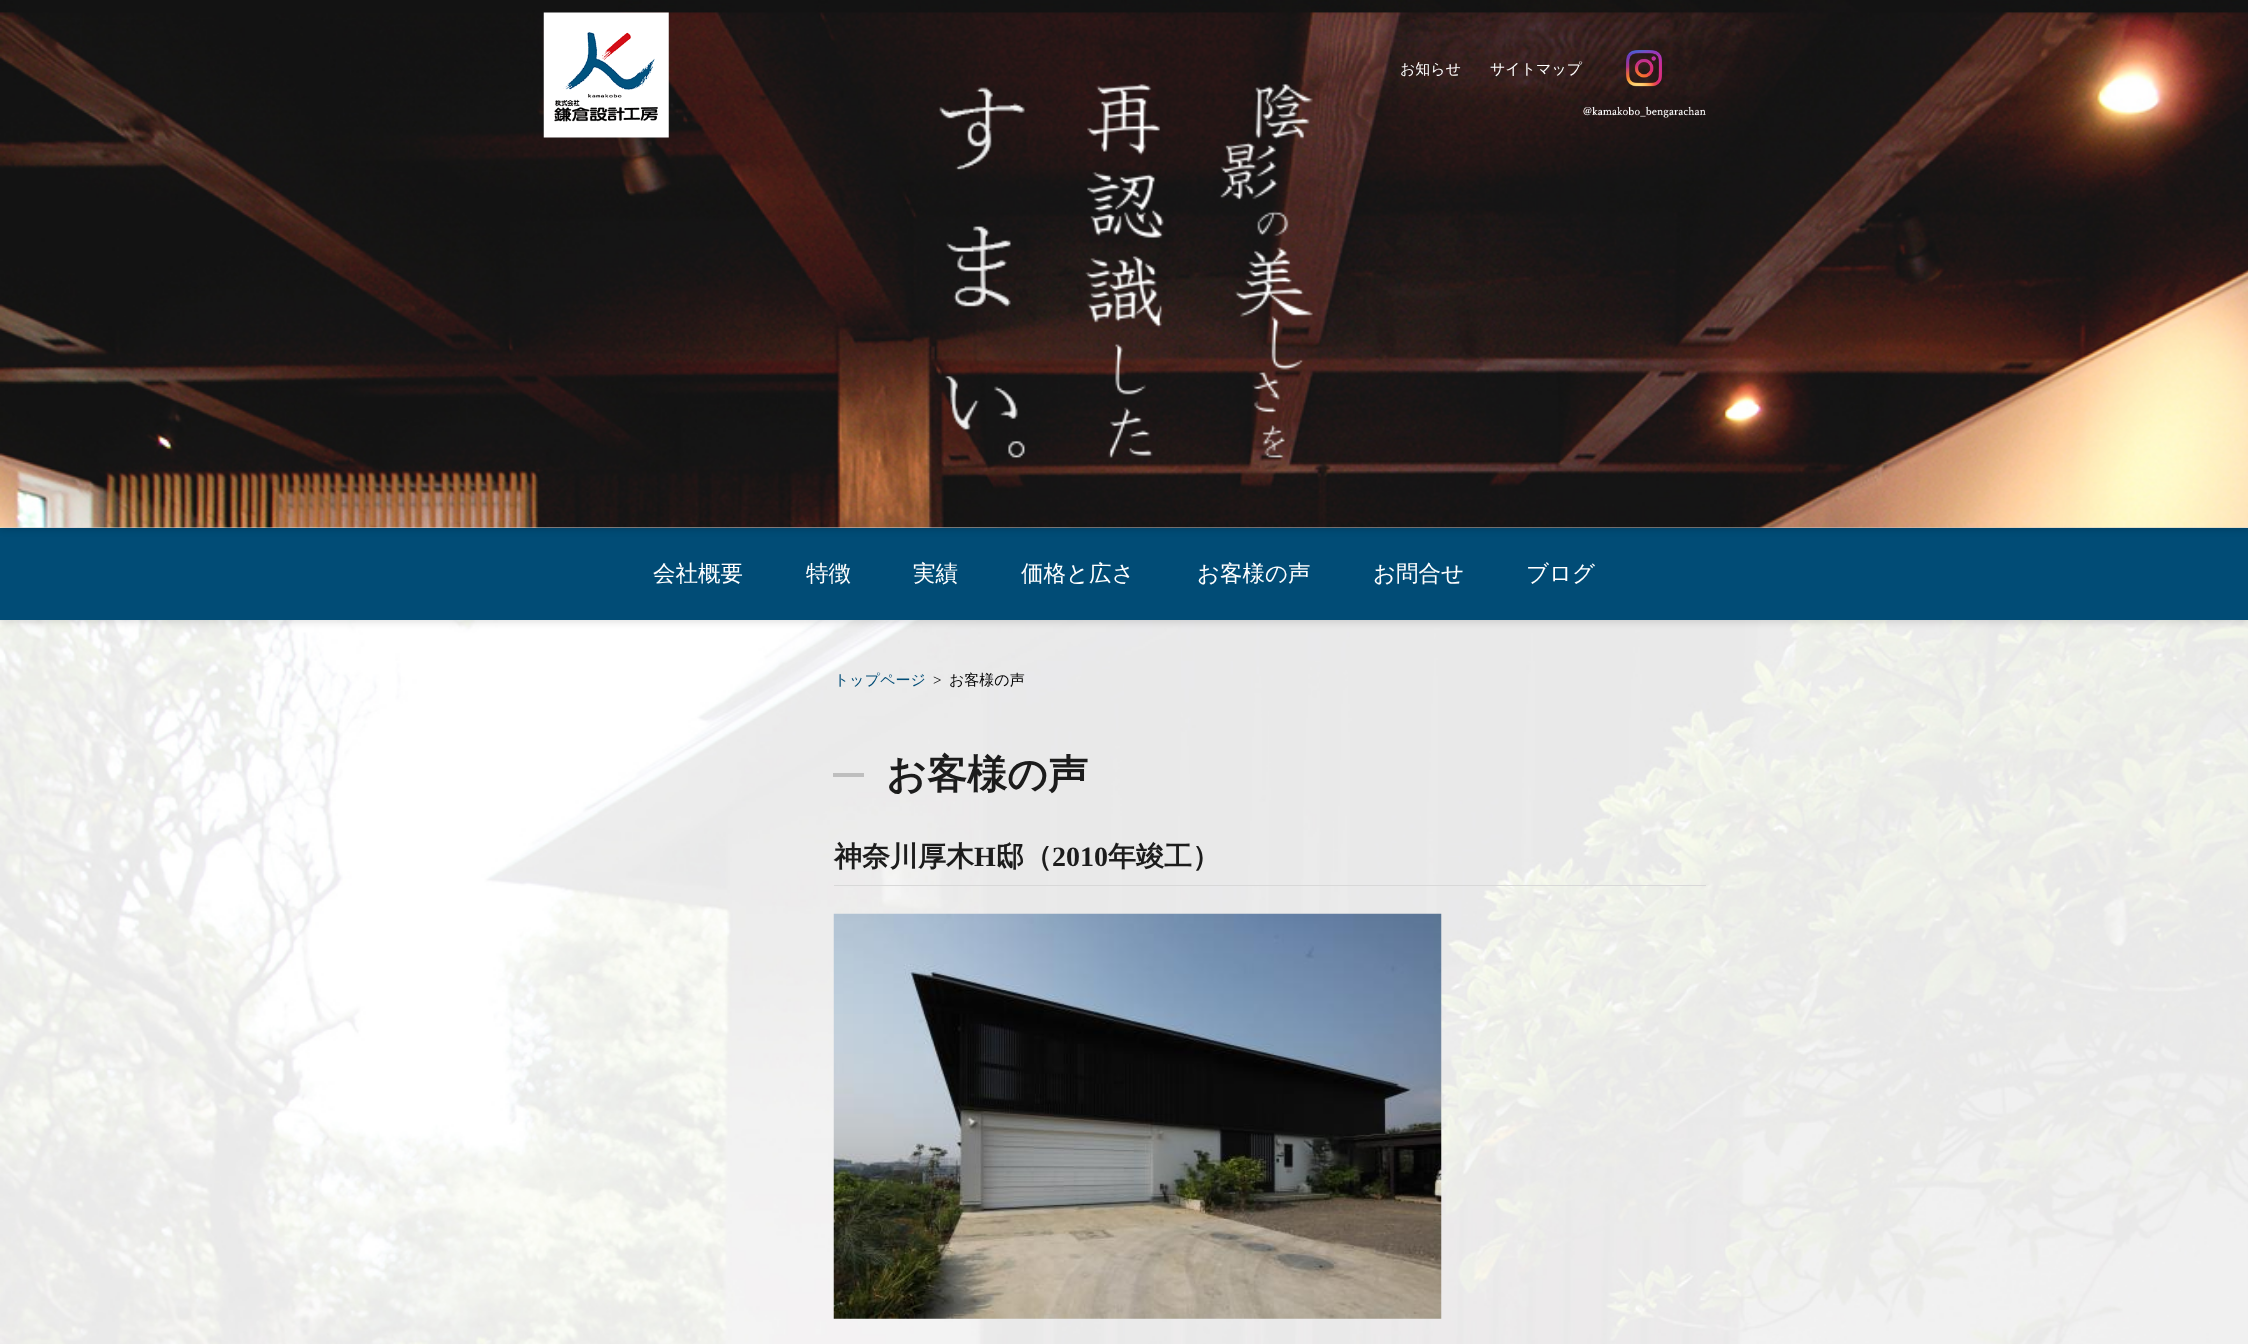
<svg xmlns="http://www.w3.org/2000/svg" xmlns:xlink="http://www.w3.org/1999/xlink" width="2248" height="1344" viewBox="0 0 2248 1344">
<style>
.cls-1{font:500 15px WenQuanYi Zen Hei;fill:#ffffff}
.cls-2{font:500 22.5px WenQuanYi Zen Hei;fill:#ffffff}
.cls-3{font:500 15px WenQuanYi Zen Hei;fill:#014c76}
.cls-4{font:15px Liberation Serif;fill:#000000}
.cls-5{font:500 15px WenQuanYi Zen Hei;fill:#000000}
.cls-6{font:bold 40px WenQuanYi Zen Hei;fill:#1c1c1c}
.cls-7{font:bold 28px WenQuanYi Zen Hei;fill:#1c1c1c}
.cls-8{font:bold 28px Liberation Serif;fill:#1c1c1c}
</style>
<rect width="100%" height="100%" fill="#ffffff"/>
<image xlink:href="image0.png" x="0" y="527" width="2248" height="817"/>
<rect fill="#000000" fill-opacity="0.1" filter="blur(3px)" x="0" y="530" width="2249" height="93"/>
<rect fill="#014c76" x="0" y="528" width="2248" height="92"/>
<rect fill="#000000" fill-opacity="0.15" filter="blur(3px)" x="0" y="3" width="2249" height="527"/>
<image xlink:href="image1.png" x="0" y="0" width="2248" height="528"/>
<image xlink:href="image2.png" x="543" y="12" width="126" height="126"/>
<image xlink:href="image3.png" x="1583" y="50" width="123" height="68"/>
<rect fill="#bebebe" x="833" y="773" width="31" height="4"/>
<rect fill="#d8d8d8" x="834" y="885" width="872" height="1"/>
<image xlink:href="image4.png" x="833" y="913" width="609" height="406"/>
<text class="cls-1" x="1400" y="74">お知らせ</text>
<text class="cls-1" x="1490" y="74">サイトマップ</text>
<text class="cls-2" x="653" y="581">会社概要</text>
<text class="cls-2" x="806" y="581">特徴</text>
<text class="cls-2" x="913" y="581">実績</text>
<text class="cls-2" x="1021" y="581">価格と広さ</text>
<text class="cls-2" x="1197" y="581">お客様の声</text>
<text class="cls-2" x="1373" y="581">お問合せ</text>
<text class="cls-2" x="1526" y="581">ブログ</text>
<text class="cls-3" x="834" y="685">トップページ</text>
<text class="cls-4" x="933" y="685">&gt;</text>
<text class="cls-5" x="949" y="685">お客様の声</text>
<text class="cls-6" x="886" y="788">お客様の声</text>
<text class="cls-7" x="834" y="866">神奈川厚木</text>
<text class="cls-8" x="974" y="866">H</text>
<text class="cls-7" x="996" y="866">邸（</text>
<text class="cls-8" x="1052" y="866">2010</text>
<text class="cls-7" x="1108" y="866">年竣工）</text>
</svg>
